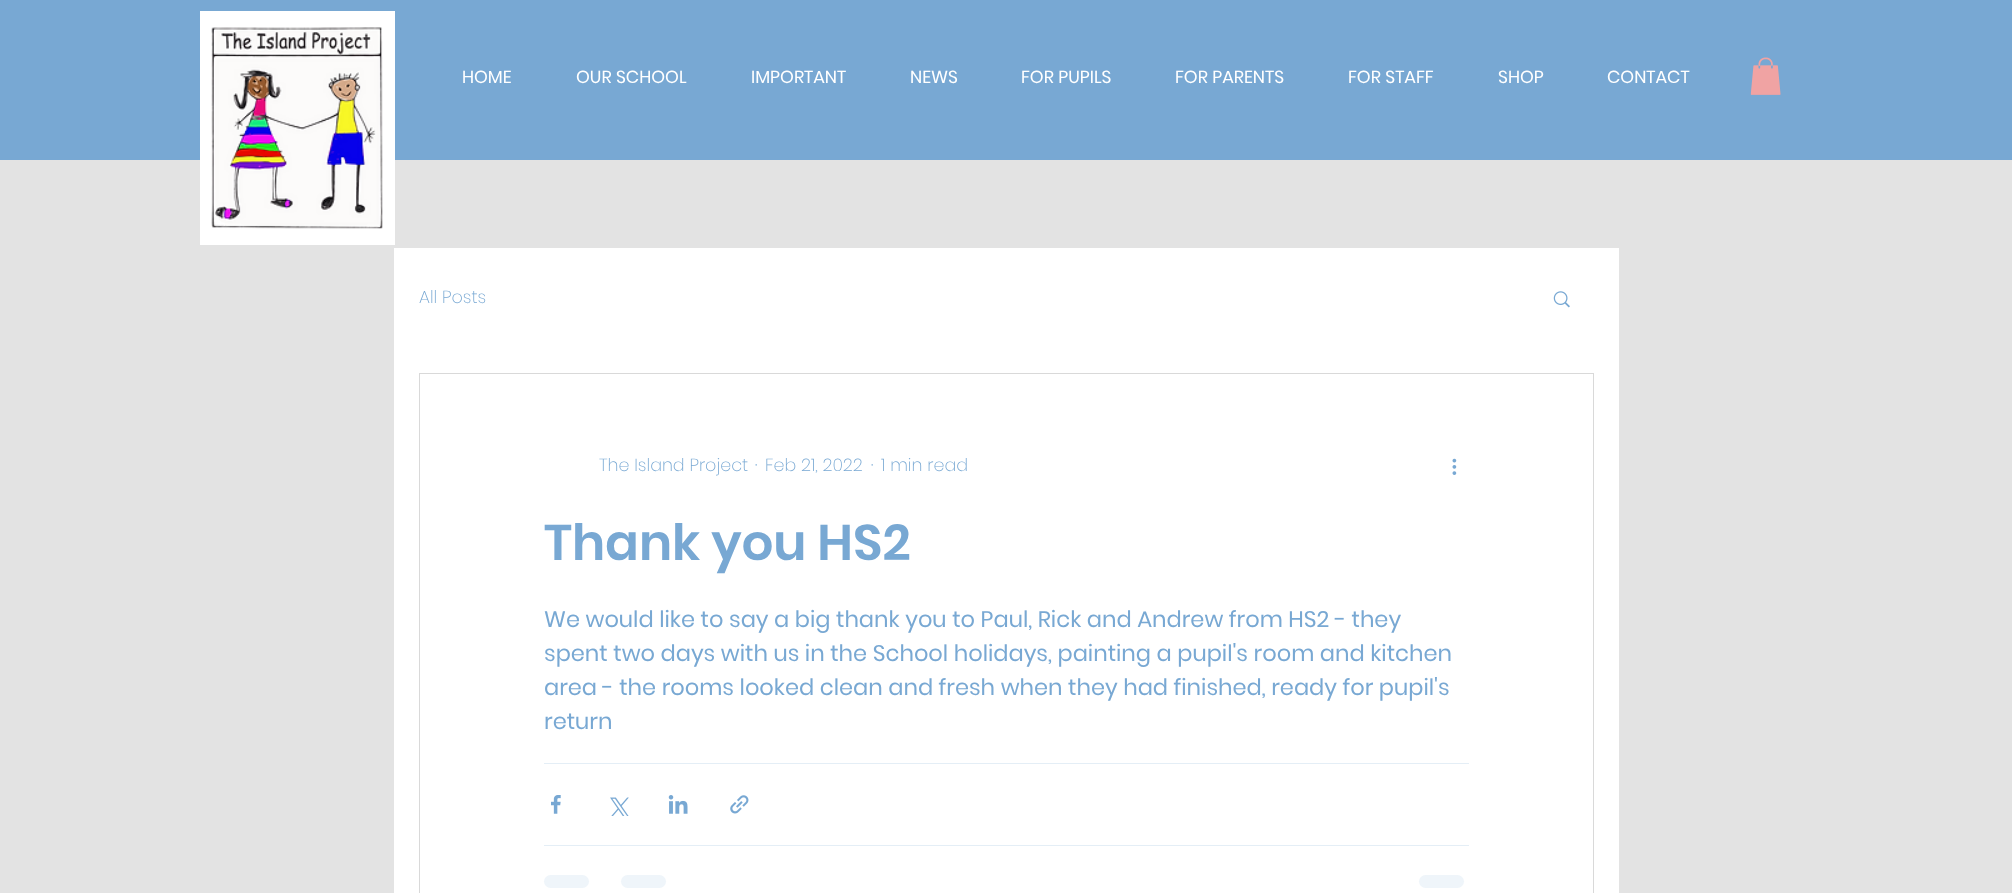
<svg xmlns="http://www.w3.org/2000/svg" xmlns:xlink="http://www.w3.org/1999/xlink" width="2012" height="893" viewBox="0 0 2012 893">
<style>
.cls-1{font:17.5px Poppins;fill:#ffffff}
.cls-2{font:200 17.5px Poppins;fill:#78a8d3}
.cls-3{font:600 50px Poppins;fill:#78a8d3}
.cls-4{font:22.5px Poppins;fill:#78a8d3}
</style>
<rect width="100%" height="100%" fill="#e3e3e3"/>
<rect fill="#78a8d3" x="0" y="0" width="2012" height="160"/>
<rect fill="#ffffff" x="200" y="11" width="195" height="234"/>
<image xlink:href="image0.png" x="211" y="27" width="172" height="202"/>
<image xlink:href="image1.png" x="1750" y="57" width="31" height="38"/>
<rect fill="#ffffff" x="394" y="248" width="1225" height="645"/>
<image xlink:href="image2.png" x="1553" y="291" width="17" height="17"/>
<rect fill="none" stroke="#d9d9d9" x="419.5" y="373.5" width="1174" height="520"/>
<image xlink:href="image3.png" x="1452" y="458" width="5" height="17"/>
<rect fill="#e4eef6" x="544" y="763" width="925" height="1"/>
<image xlink:href="image4.png" x="551" y="795" width="10" height="19"/>
<image xlink:href="image5.png" x="610" y="797" width="19" height="19"/>
<image xlink:href="image6.png" x="668" y="795" width="20" height="19"/>
<image xlink:href="image7.png" x="730" y="795" width="19" height="19"/>
<rect fill="#e4eef6" x="544" y="845" width="925" height="1"/>
<rect fill="#eff5fa" x="544" y="875" width="45" height="13" rx="6.5"/>
<rect fill="#eff5fa" x="621" y="875" width="45" height="13" rx="6.5"/>
<rect fill="#eff5fa" x="1419" y="875" width="45" height="13" rx="6.5"/>
<text class="cls-1" x="462" y="83">HOME</text>
<text class="cls-1" x="576" y="83">OUR SCHOOL</text>
<text class="cls-1" x="751" y="83">IMPORTANT</text>
<text class="cls-1" x="910" y="83">NEWS</text>
<text class="cls-1" x="1021" y="83">FOR PUPILS</text>
<text class="cls-1" x="1175" y="83">FOR PARENTS</text>
<text class="cls-1" x="1348" y="83">FOR STAFF</text>
<text class="cls-1" x="1498" y="83">SHOP</text>
<text class="cls-1" x="1607" y="83">CONTACT</text>
<text class="cls-2" x="419" y="303">All Posts</text>
<text class="cls-2" x="599" y="471">The Island Project</text>
<text class="cls-2" x="755" y="471">·</text>
<text class="cls-2" x="765" y="471">Feb 21, 2022</text>
<text class="cls-2" x="871" y="471">·</text>
<text class="cls-2" x="881" y="471">1 min read</text>
<text class="cls-3" x="544" y="560">Thank you HS2</text>
<text class="cls-4"><tspan x="544" y="627">We would like to say a big thank you to Paul, Rick and Andrew from HS2 - they</tspan><tspan x="544" y="661">spent two days with us in the School holidays, painting a pupil's room and kitchen</tspan><tspan x="544" y="695">area - the rooms looked clean and fresh when they had finished, ready for pupil's</tspan><tspan x="544" y="729">return</tspan></text>
</svg>
